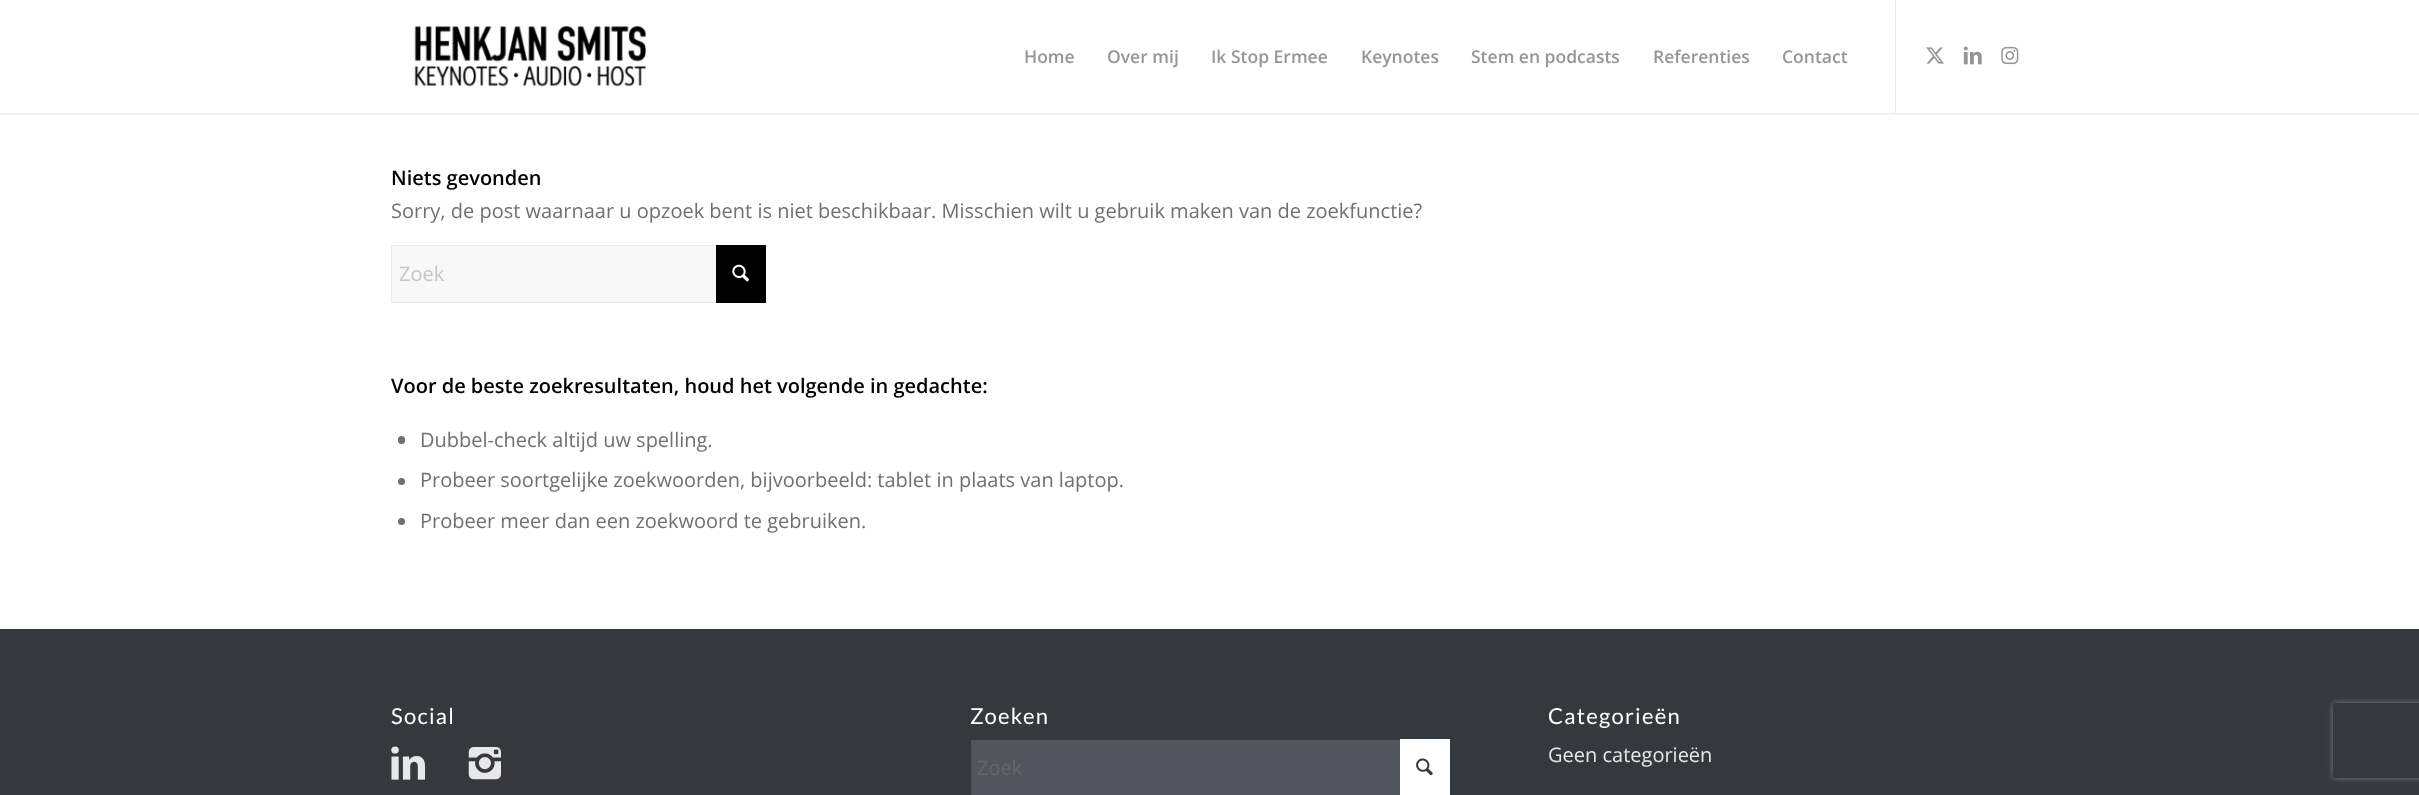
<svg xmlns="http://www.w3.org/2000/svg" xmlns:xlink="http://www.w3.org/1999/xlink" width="2419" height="795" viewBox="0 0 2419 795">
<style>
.cls-1{font:600 17.5px Open Sans;fill:#969696}
.cls-2{font:600 20px Open Sans;fill:#000000}
.cls-3{font:20px Open Sans;fill:#707070}
.cls-4{font:20px Open Sans;fill:#c5c5c5}
.cls-5{font:22px Lato;letter-spacing:1.25px;fill:#ffffff}
.cls-6{font:20px Open Sans;fill:#65676a}
.cls-7{font:20px Open Sans;fill:#e8e8e8}
</style>
<defs>
<clipPath id="clip1"><path d="M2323 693H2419V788H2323ZM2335.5 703H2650.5C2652 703 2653 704 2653 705.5V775.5C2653 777 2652 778 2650.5 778H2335.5C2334 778 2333 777 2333 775.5V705.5C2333 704 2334 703 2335.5 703Z" clip-rule="evenodd"/></clipPath>
</defs>
<rect width="100%" height="100%" fill="#ffffff"/>
<rect fill="#000000" fill-opacity="0.1" filter="blur(1px)" x="-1" y="-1" width="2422" height="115"/>
<rect fill="#ffffff" x="0" y="0" width="2419" height="113"/>
<image xlink:href="image0.png" x="414" y="25" width="232" height="62"/>
<rect fill="#ebebeb" x="1895" y="0" width="1" height="113"/>
<image xlink:href="image1.png" x="1926" y="47" width="18" height="17"/>
<image xlink:href="image2.png" x="1963" y="46" width="19" height="19"/>
<image xlink:href="image3.png" x="2001" y="46" width="18" height="19"/>
<rect fill="#f8f8f8" x="392" y="246" width="324" height="56"/>
<rect fill="none" stroke="#ebebeb" x="391.5" y="245.5" width="374" height="57"/>
<rect fill="#000000" x="716" y="245" width="50" height="58"/>
<image xlink:href="image4.png" x="732" y="264" width="17" height="18"/>
<rect fill="#707070" x="398" y="436" width="7" height="8" rx="3.5"/>
<circle fill="#707070" cx="401.5" cy="481.5" r="3.5"/>
<circle fill="#707070" cx="401.5" cy="521.5" r="3.5"/>
<rect fill="#35383c" x="0" y="629" width="2419" height="166"/>
<image xlink:href="image5.png" x="391" y="746" width="34" height="34"/>
<image xlink:href="image6.png" x="468" y="747" width="33" height="33"/>
<rect fill="#ffffff" x="1400" y="739" width="50" height="56"/>
<rect fill="#52565c" x="971" y="740" width="429" height="55"/>
<image xlink:href="image7.png" x="1416" y="758" width="17" height="18"/>
<g clip-path="url(#clip1)">
<rect fill="#808080" filter="blur(3px)" x="2333" y="703" width="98" height="75" rx="2.5"/>
</g>
<text class="cls-1" x="1024" y="63">Home</text>
<text class="cls-1" x="1107" y="63">Over mij</text>
<text class="cls-1" x="1211" y="63">Ik Stop Ermee</text>
<text class="cls-1" x="1361" y="63">Keynotes</text>
<text class="cls-1" x="1471" y="63">Stem en podcasts</text>
<text class="cls-1" x="1653" y="63">Referenties</text>
<text class="cls-1" x="1782" y="63">Contact</text>
<text class="cls-2" x="391" y="185">Niets gevonden</text>
<text class="cls-3" x="391" y="218">Sorry, de post waarnaar u opzoek bent is niet beschikbaar. Misschien wilt u gebruik maken van de zoekfunctie?</text>
<text class="cls-4" x="399" y="281">Zoek</text>
<text class="cls-2" x="391" y="393">Voor de beste zoekresultaten, houd het volgende in gedachte:</text>
<text class="cls-3" x="420" y="447">Dubbel-check altijd uw spelling.</text>
<text class="cls-3" x="420" y="487">Probeer soortgelijke zoekwoorden, bijvoorbeeld: tablet in plaats van laptop.</text>
<text class="cls-3" x="420" y="528">Probeer meer dan een zoekwoord te gebruiken.</text>
<text class="cls-5" x="391" y="724">Social</text>
<text class="cls-5" x="970" y="724">Zoeken</text>
<text class="cls-6" x="977" y="775">Zoek</text>
<text class="cls-5" x="1548" y="724">Categorieën</text>
<text class="cls-7" x="1548" y="762">Geen categorieën</text>
</svg>
